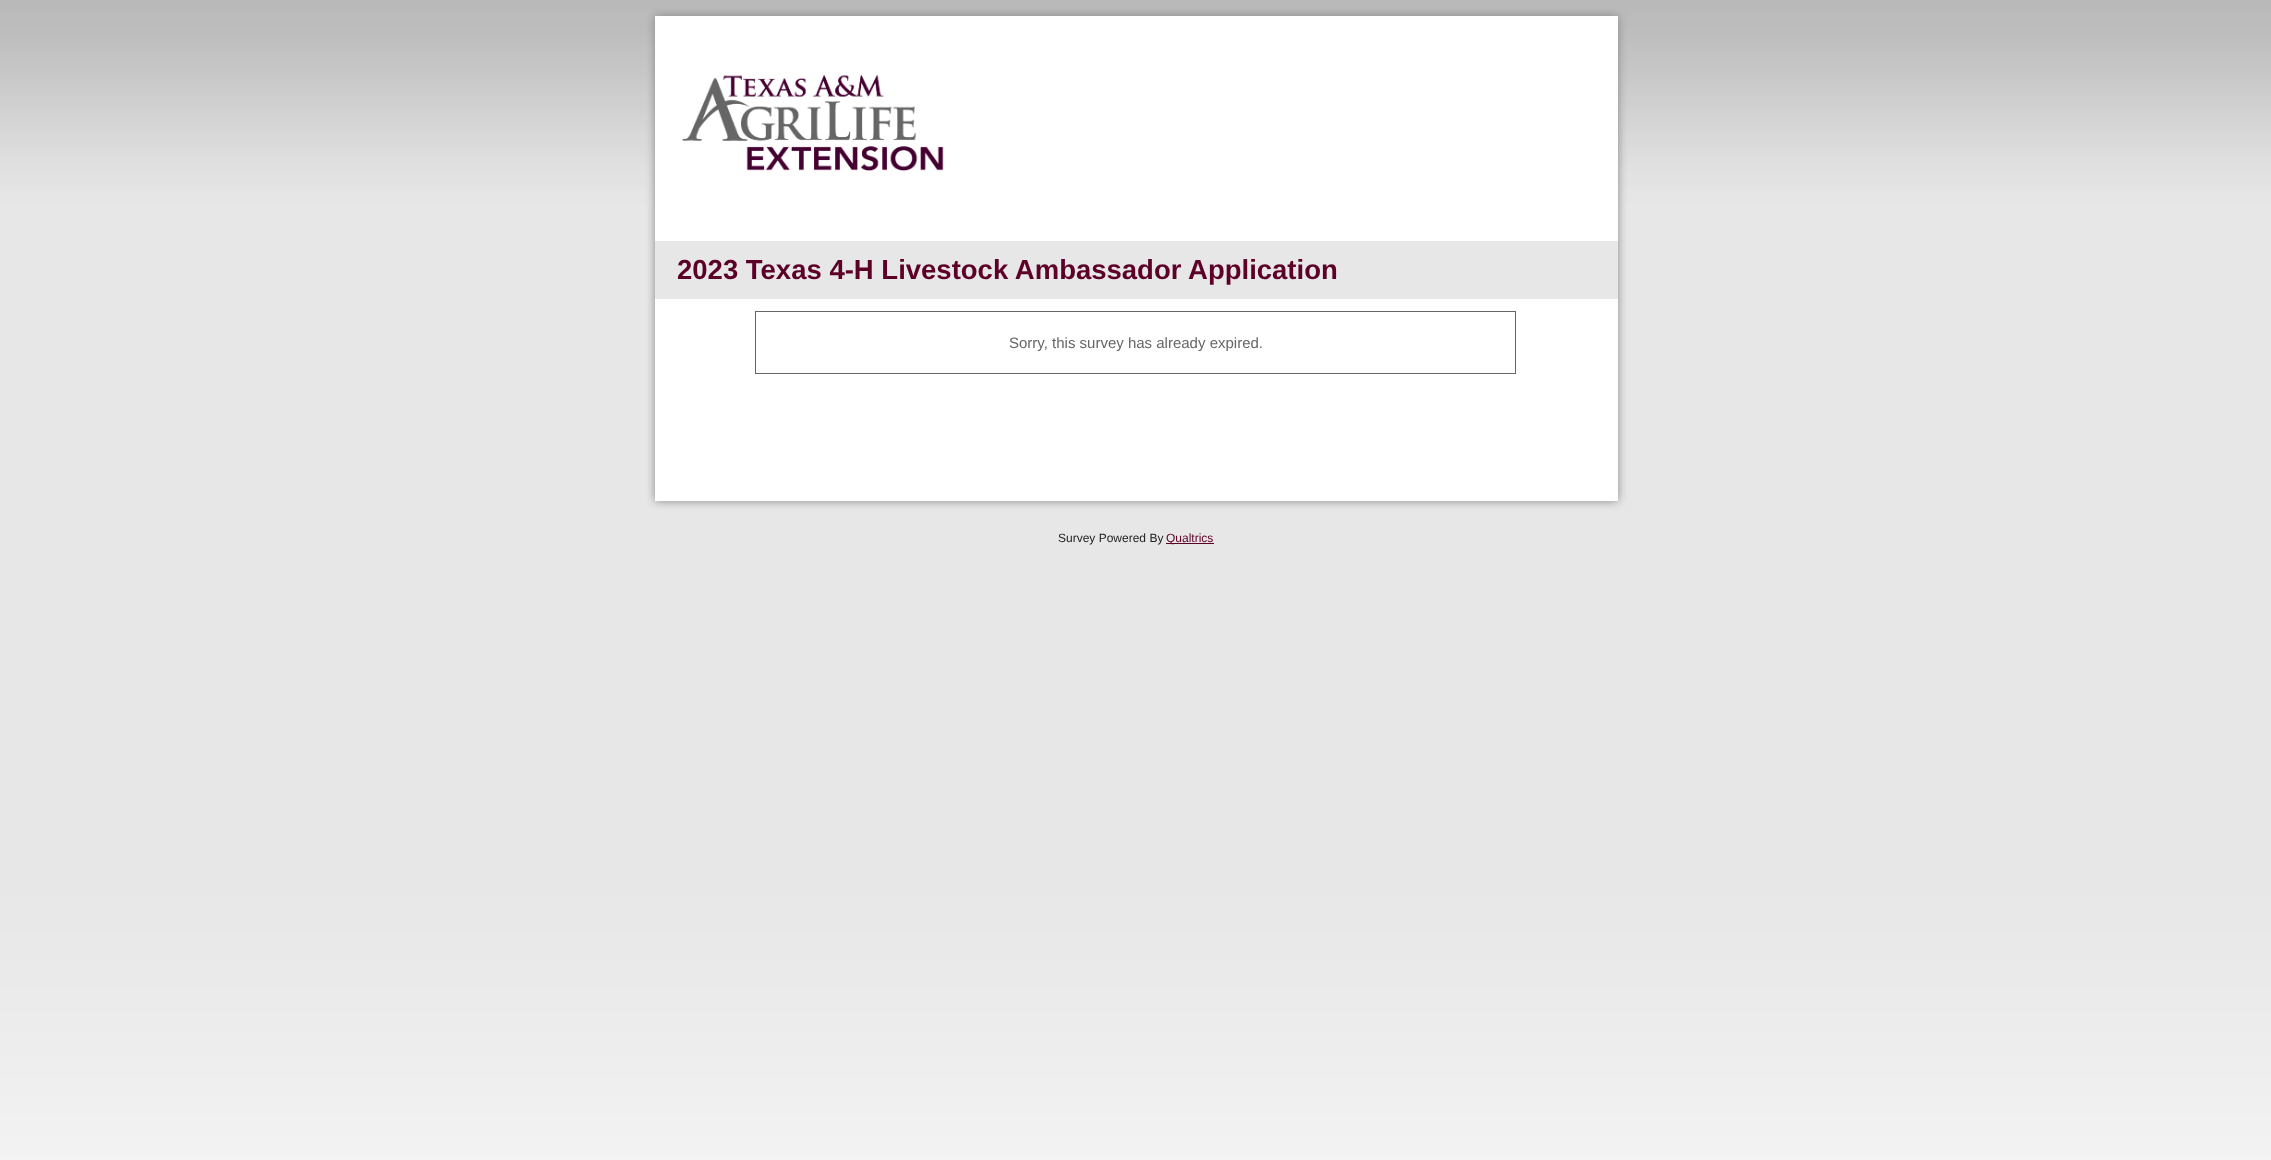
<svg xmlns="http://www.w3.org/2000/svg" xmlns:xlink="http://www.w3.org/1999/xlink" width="2271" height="1160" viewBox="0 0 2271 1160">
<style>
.cls-1{font:bold 27.5px Liberation Sans;fill:#5d0027}
.cls-2{font:15px Liberation Sans;fill:#666666}
.cls-3{font:12px Liberation Sans;fill:#222222}
.cls-4{font:12px Liberation Sans;fill:#5d0027}
</style>
<rect width="100%" height="100%" fill="#ffffff"/>
<image xlink:href="image0.png" x="0" y="0" width="2271" height="1160"/>
<rect fill="#888888" filter="blur(5px)" x="655" y="16" width="963" height="485"/>
<rect fill="#ffffff" x="655" y="16" width="963" height="485"/>
<image xlink:href="image1.png" x="682" y="74" width="262" height="97"/>
<rect fill="#e7e7e7" x="655" y="241" width="963" height="58"/>
<rect fill="none" stroke="#666666" x="755.5" y="311.5" width="760" height="62"/>
<rect fill="#5d0027" x="1166" y="543" width="48" height="1"/>
<text class="cls-1" x="677" y="279">2023 Texas 4-H Livestock Ambassador Application</text>
<text class="cls-2" x="1009" y="348">Sorry, this survey has already expired.</text>
<text class="cls-3" x="1058" y="542">Survey Powered By</text>
<text class="cls-4" x="1166" y="542">Qualtrics</text>
</svg>
